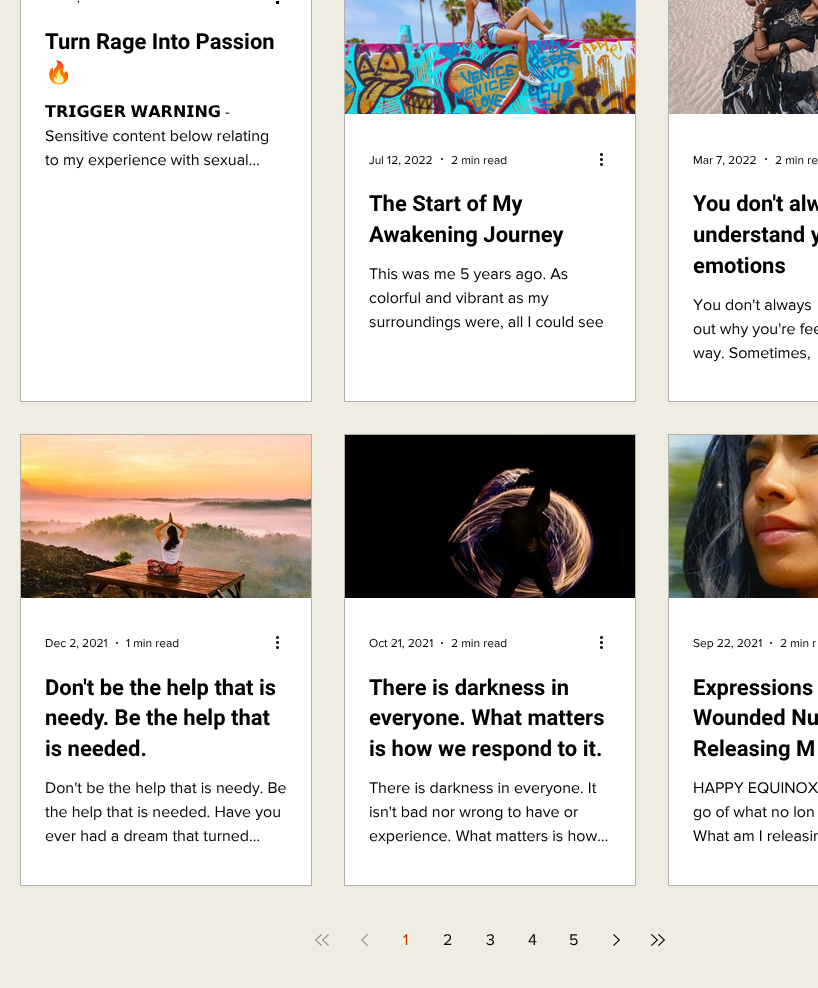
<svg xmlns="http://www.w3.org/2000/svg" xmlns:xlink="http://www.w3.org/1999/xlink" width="818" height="988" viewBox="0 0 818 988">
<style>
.cls-1{font:12px 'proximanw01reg';fill:#000000}
.cls-2{font:bold 22px Roboto;fill:#000000}
.cls-3{font:22px Noto Color Emoji;fill:#000000}
.cls-4{font:bold 16px DejaVu Sans;fill:#000000}
.cls-5{font:16px 'proximanw01reg';fill:#000000}
.cls-6{font:16px 'proximanw01reg';fill:#993500}
</style>
<rect width="100%" height="100%" fill="#efece2"/>
<rect fill="none" stroke="#b3b1aa" x="20.5" y="-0.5" width="291" height="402"/>
<rect fill="#ffffff" x="21" y="0" width="290" height="401"/>
<rect fill="#000000" x="276" y="1" width="3" height="3"/>
<rect fill="none" stroke="#b3b1aa" x="344.5" y="-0.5" width="291" height="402"/>
<image xlink:href="image0.png" x="345" y="0" width="290" height="114"/>
<rect fill="#ffffff" x="345" y="114" width="290" height="287"/>
<circle fill="#000000" cx="442" cy="159" r="1"/>
<image xlink:href="image1.png" x="600" y="153" width="3" height="13"/>
<rect fill="none" stroke="#b3b1aa" x="668.5" y="-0.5" width="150" height="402"/>
<image xlink:href="image2.png" x="669" y="0" width="149" height="114"/>
<rect fill="#ffffff" x="669" y="114" width="149" height="287"/>
<circle fill="#000000" cx="766" cy="159" r="1"/>
<rect fill="none" stroke="#b3b1aa" x="20.5" y="434.5" width="291" height="451"/>
<image xlink:href="image3.png" x="21" y="435" width="290" height="163"/>
<rect fill="#ffffff" x="21" y="598" width="290" height="287"/>
<circle fill="#000000" cx="117" cy="643" r="1"/>
<image xlink:href="image1.png" x="276" y="636" width="3" height="13"/>
<rect fill="none" stroke="#b3b1aa" x="344.5" y="434.5" width="291" height="451"/>
<image xlink:href="image4.png" x="345" y="435" width="290" height="163"/>
<image xlink:href="image5.png" x="434" y="440" width="186" height="158"/>
<rect fill="#ffffff" x="345" y="598" width="290" height="287"/>
<circle fill="#000000" cx="442" cy="643" r="1"/>
<image xlink:href="image1.png" x="600" y="636" width="3" height="13"/>
<rect fill="none" stroke="#b3b1aa" x="668.5" y="434.5" width="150" height="451"/>
<image xlink:href="image6.png" x="669" y="435" width="149" height="163"/>
<rect fill="#ffffff" x="669" y="598" width="149" height="287"/>
<circle fill="#000000" cx="771" cy="643" r="1"/>
<image xlink:href="image7.png" x="315" y="934" width="7" height="12"/>
<image xlink:href="image7.png" x="322" y="934" width="7" height="12"/>
<image xlink:href="image7.png" x="361" y="934" width="7" height="12"/>
<image xlink:href="image8.png" x="613" y="934" width="7" height="12"/>
<image xlink:href="image8.png" x="651" y="934" width="7" height="12"/>
<image xlink:href="image8.png" x="658" y="934" width="7" height="12"/>
<text class="cls-1" x="77" y="2">,</text>
<text class="cls-2" x="45" y="49">Turn Rage Into Passion</text>
<text class="cls-3" x="45" y="80">🔥</text>
<text class="cls-4" x="45" y="117" word-spacing="-1">𝗧𝗥𝗜𝗚𝗚𝗘𝗥 𝗪𝗔𝗥𝗡𝗜𝗡𝗚</text>
<text class="cls-5" x="225" y="117">-</text>
<text class="cls-5"><tspan x="45" y="141">Sensitive content below relating</tspan><tspan x="45" y="165">to my experience with sexual…</tspan></text>
<text class="cls-1" x="369" y="164">Jul 12, 2022</text>
<text class="cls-1" x="451" y="164">2 min read</text>
<text class="cls-2"><tspan x="369" y="211">The Start of My</tspan><tspan x="369" y="242">Awakening Journey</tspan></text>
<text class="cls-5"><tspan x="369" y="279">This was me 5 years ago. As</tspan><tspan x="369" y="303">colorful and vibrant as my</tspan><tspan x="369" y="327">surroundings were, all I could see</tspan></text>
<text class="cls-1" x="693" y="164">Mar 7, 2022</text>
<text class="cls-1" x="775" y="164">2 min re</text>
<text class="cls-2"><tspan x="693" y="211">You don't alw</tspan><tspan x="693" y="242">understand y</tspan><tspan x="693" y="273">emotions</tspan></text>
<text class="cls-5"><tspan x="693" y="310">You don't always</tspan><tspan x="693" y="334">out why you're fee</tspan><tspan x="693" y="358">way. Sometimes,</tspan></text>
<text class="cls-1" x="45" y="647">Dec 2, 2021</text>
<text class="cls-1" x="126" y="647">1 min read</text>
<text class="cls-2"><tspan x="45" y="695">Don't be the help that is</tspan><tspan x="45" y="725">needy. Be the help that</tspan><tspan x="45" y="756">is needed.</tspan></text>
<text class="cls-5"><tspan x="45" y="793">Don't be the help that is needy. Be</tspan><tspan x="45" y="817">the help that is needed. Have you</tspan><tspan x="45" y="841">ever had a dream that turned…</tspan></text>
<text class="cls-1" x="369" y="647">Oct 21, 2021</text>
<text class="cls-1" x="451" y="647">2 min read</text>
<text class="cls-2"><tspan x="369" y="695">There is darkness in</tspan><tspan x="369" y="725">everyone. What matters</tspan><tspan x="369" y="756">is how we respond to it.</tspan></text>
<text class="cls-5"><tspan x="369" y="793">There is darkness in everyone. It</tspan><tspan x="369" y="817">isn't bad nor wrong to have or</tspan><tspan x="369" y="841">experience. What matters is how…</tspan></text>
<text class="cls-1" x="693" y="647">Sep 22, 2021</text>
<text class="cls-1" x="780" y="647">2 min r</text>
<text class="cls-2"><tspan x="693" y="695">Expressions</tspan><tspan x="693" y="725">Wounded Nu</tspan><tspan x="693" y="756">Releasing M</tspan></text>
<text class="cls-5"><tspan x="693" y="793">HAPPY EQUINOX</tspan><tspan x="693" y="817">go of what no lon</tspan><tspan x="693" y="841">What am I releasin</tspan></text>
<text class="cls-6" x="403" y="945">1</text>
<text class="cls-5" x="443" y="945">2</text>
<text class="cls-5" x="486" y="945">3</text>
<text class="cls-5" x="528" y="945">4</text>
<text class="cls-5" x="569" y="945">5</text>
</svg>
